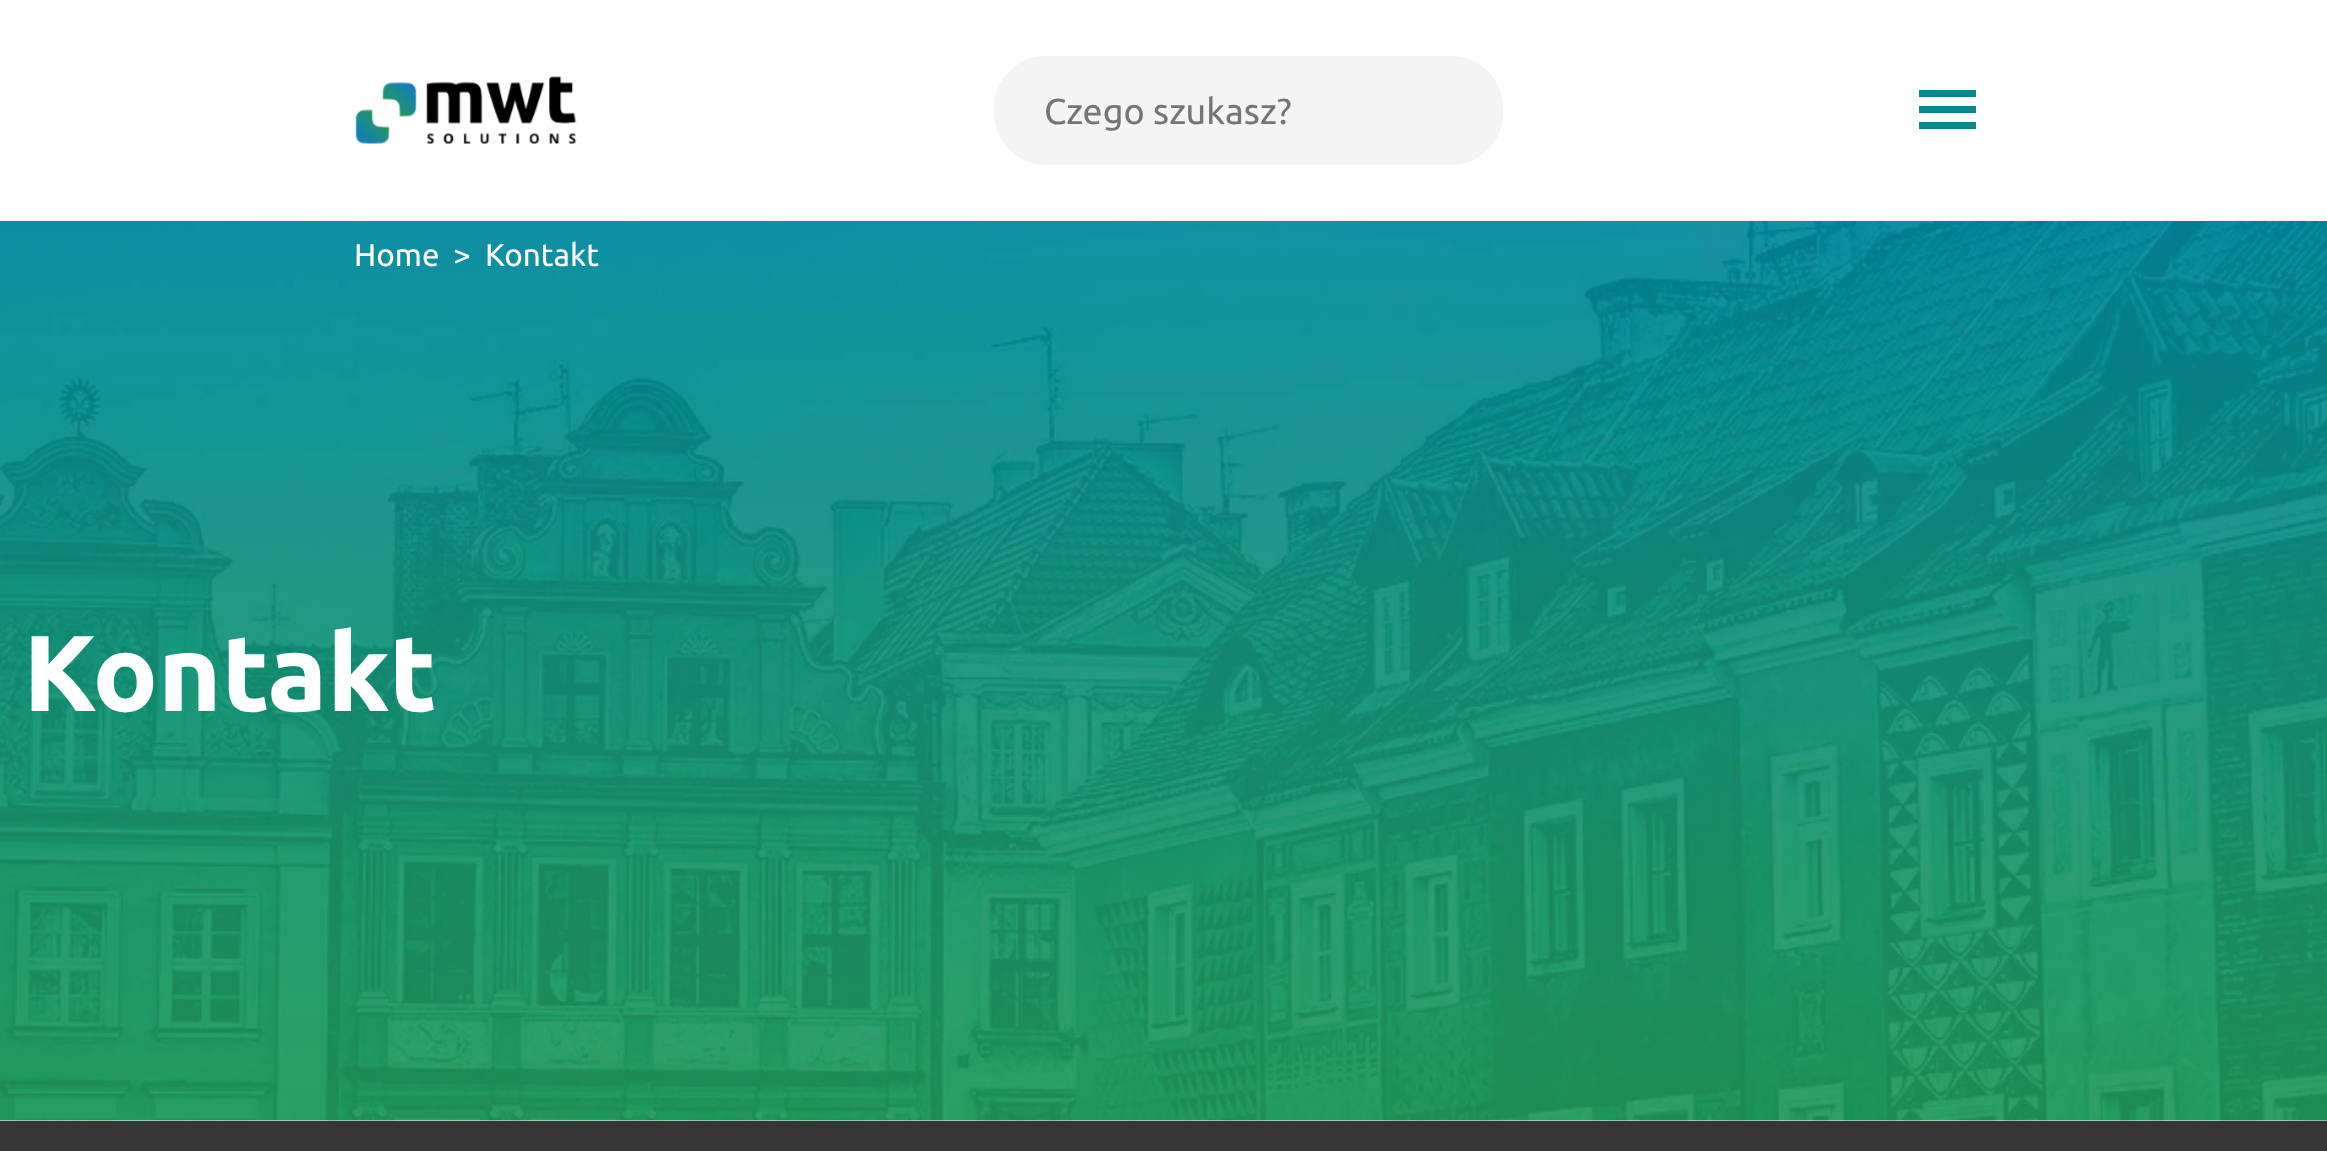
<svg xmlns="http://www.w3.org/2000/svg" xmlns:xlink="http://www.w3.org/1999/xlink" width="2327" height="1151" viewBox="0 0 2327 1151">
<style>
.cls-1{font:36px Ubuntu;fill:#757575}
.cls-2{font:31.5px Ubuntu;fill:#ffffff}
.cls-3{font:bold 108px Ubuntu;fill:#ffffff}
</style>
<rect width="100%" height="100%" fill="#ffffff"/>
<image xlink:href="image0.png" x="355" y="76" width="222" height="68"/>
<rect fill="#f4f4f4" stroke="#ffffff" stroke-width="2" x="993" y="55" width="511" height="111" rx="53"/>
<rect fill="#0a888d" x="1919" y="90" width="57" height="7"/>
<rect fill="#0a888d" x="1919" y="106" width="57" height="7"/>
<rect fill="#0a888d" x="1919" y="122" width="57" height="7"/>
<image xlink:href="image1.png" x="0" y="221" width="2327" height="900"/>
<rect fill="#363636" x="0" y="1121" width="2327" height="30"/>
<text class="cls-1" x="1044" y="124">Czego szukasz?</text>
<text class="cls-2" x="354" y="266">Home</text>
<text class="cls-2" x="453" y="266">&gt;</text>
<text class="cls-2" x="485" y="266">Kontakt</text>
<text class="cls-3" x="23" y="711">Kontakt</text>
</svg>
